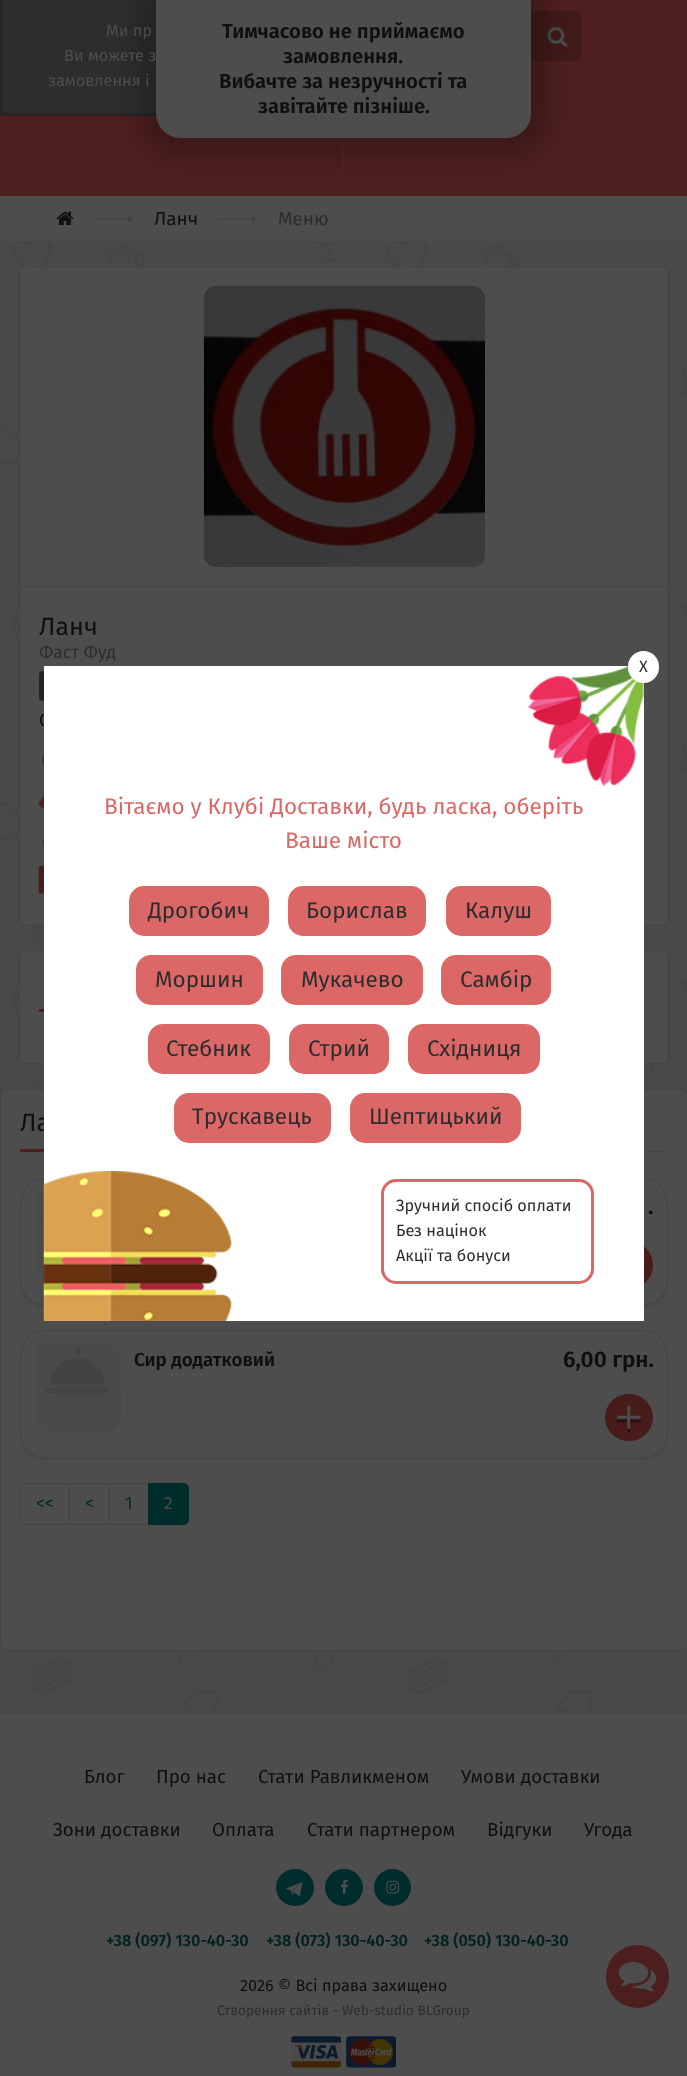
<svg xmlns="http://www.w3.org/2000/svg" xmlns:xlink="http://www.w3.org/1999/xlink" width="687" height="2076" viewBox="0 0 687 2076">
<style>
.cls-1{font:16.25px Fira Sans;fill:#4d4d4d}
.cls-2{font:600 20.25px Fira Sans;fill:#0f0f0f}
.cls-3{font:18.75px Fira Sans;fill:#0f0f0f}
.cls-4{font:18.75px Fira Sans;fill:#2d2d2d}
.cls-5{font:25px Fira Sans;fill:#0f0f0f}
.cls-6{font:17.5px Fira Sans;fill:#2d2d2d}
.cls-7{font:17.5px Fira Sans;fill:#0f0f0f}
.cls-8{font:600 22.5px Fira Sans;fill:#0f0f0f}
.cls-9{font:600 18.75px Fira Sans;fill:#0f0f0f}
.cls-10{font:17.5px Fira Sans;fill:#002c2b}
.cls-11{font:17.5px Fira Sans;fill:#4d4d4d}
.cls-12{font:16.25px Fira Sans;fill:#2d2d2d}
.cls-13{font:22.5px Fira Sans;fill:#db6866}
.cls-14{font:22.5px Fira Sans;fill:#2d2d2d}
.cls-15{font:600 16.25px Fira Sans;fill:#022221}
.cls-16{font:16.25px Fira Sans;fill:#0f0f0f}
.cls-17{font:13.75px Fira Sans;fill:#2d2d2d}
</style>
<rect width="100%" height="100%" fill="#ffffff"/>
<image xlink:href="image0.png" x="0" y="241" width="687" height="1473"/>
<rect fill="#4d1f1f" x="0" y="0" width="687" height="196"/>
<path fill="#411a1a" stroke="#401919" d="M114 11.5H535.5V60.5H114C110 60.5 106.5 57 106.5 53V19C106.5 15 110 11.5 114 11.5Z"/>
<path fill="#411a1a" d="M535 11H576C579 11 581 13 581 16V56C581 59 579 61 576 61H535Z"/>
<path fill="#401919" fill-rule="evenodd" d="M535 11H576C579 11 581 13 581 16V56C581 59 579 61 576 61H535ZM535 12H576C578 12 580 14 580 16V56C580 58 578 60 576 60H535Z"/>
<image xlink:href="image1.png" x="547" y="27" width="21" height="20"/>
<rect fill="#4d2828" x="343" y="138" width="1" height="33"/>
<rect fill="#2d2d2d" fill-opacity="0.95" x="3" y="0" width="153" height="113"/>
<rect fill="#252525" x="0" y="113" width="157" height="3"/>
<rect fill="#252525" x="0" y="0" width="3" height="115"/>
<rect fill="#000000" fill-opacity="0.2" filter="blur(9.5px)" x="138" y="-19" width="412" height="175" rx="44"/>
<path fill="#4d4d4d" d="M156 0H531V113C531 127 520 138 506 138H181C167 138 156 127 156 113Z"/>
<rect fill="#4d4d4d" x="0" y="196" width="687" height="45"/>
<image xlink:href="image2.png" x="56" y="211" width="18" height="14"/>
<image xlink:href="image3.png" x="95" y="216" width="38" height="7"/>
<image xlink:href="image4.png" x="218" y="216" width="39" height="7"/>
<rect fill="#4d4d4d" stroke="#444444" x="19.5" y="266.5" width="649" height="659" rx="5.5"/>
<rect fill="#444444" x="20" y="586" width="648" height="1"/>
<image xlink:href="image5.png" x="203" y="286" width="282" height="282"/>
<rect fill="#242424" x="39" y="671" width="96" height="30" rx="4"/>
<image xlink:href="image6.png" x="42" y="753" width="2" height="15"/>
<image xlink:href="image7.png" x="38" y="794" width="6" height="15"/>
<image xlink:href="image8.png" x="42" y="838" width="2" height="8"/>
<image xlink:href="image9.png" x="38" y="866" width="6" height="28"/>
<rect fill="#4d4d4d" stroke="#444444" x="19.5" y="951.5" width="649" height="112" rx="5.5"/>
<rect fill="#444444" x="644" y="1011" width="5" height="1"/>
<rect fill="#4d1f1f" x="39" y="1009" width="5" height="3"/>
<rect fill="#4d4d4d" stroke="#444444" x="0.5" y="1089.5" width="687" height="561" rx="5.5"/>
<rect fill="#444444" x="644" y="1151" width="24" height="1"/>
<rect fill="#4d1f1f" x="20" y="1149" width="24" height="3"/>
<path fill="#484848" d="M20 1280V1283C20 1297 31 1308 45 1308H643C657 1308 668 1297 668 1283V1205L667 1199L668 1280C668 1294 656 1305 642 1305H45C31 1305 20 1294 20 1280Z"/>
<rect fill="#4d4d4d" stroke="#444444" x="20.5" y="1178.5" width="647" height="126" rx="24.5"/>
<image xlink:href="image10.png" x="34" y="1191" width="10" height="87"/>
<circle fill="#471c1b" cx="629" cy="1265" r="24"/>
<path fill="#484848" d="M20 1432V1435C20 1449 31 1460 45 1460H643C657 1460 668 1449 668 1435V1358L667 1352L668 1432C668 1446 656 1458 642 1458H45C31 1458 20 1446 20 1432Z"/>
<rect fill="#4d4d4d" stroke="#444444" x="20.5" y="1330.5" width="647" height="127" rx="24.5"/>
<image xlink:href="image11.png" x="34" y="1344" width="87" height="87"/>
<rect fill="#471c1b" x="605" y="1394" width="48" height="47" rx="23.5"/>
<image xlink:href="image12.png" x="616" y="1405" width="25" height="29"/>
<path fill="none" stroke="#424242" d="M25 1483.5H69.5V1524.5H25C22.5 1524.5 20.5 1522.5 20.5 1520V1488C20.5 1485.5 22.5 1483.5 25 1483.5Z"/>
<rect fill="none" stroke="#424242" x="69.5" y="1483.5" width="40" height="41"/>
<rect fill="none" stroke="#424242" x="109.5" y="1483.5" width="39" height="41"/>
<path fill="#002c2b" stroke="#002c2b" d="M148.5 1483.5H184C186.5 1483.5 188.5 1485.5 188.5 1488V1520C188.5 1522.5 186.5 1524.5 184 1524.5H148.5Z"/>
<rect fill="#4d4d4d" x="0" y="1714" width="687" height="362"/>
<rect fill="#002c2b" x="276" y="1869" width="38" height="37" rx="18.5"/>
<image xlink:href="image14.png" x="285" y="1882" width="18" height="15"/>
<rect fill="#002c2b" x="325" y="1869" width="38" height="37" rx="18.5"/>
<image xlink:href="image15.png" x="340" y="1879" width="9" height="15"/>
<circle fill="#002c2b" cx="392.5" cy="1887.5" r="18.5"/>
<image xlink:href="image16.png" x="386" y="1880" width="14" height="14"/>
<rect fill="#494949" x="19" y="1960" width="650" height="1"/>
<image xlink:href="image17.png" x="291" y="2036" width="50" height="32"/>
<image xlink:href="image18.png" x="346" y="2036" width="50" height="32"/>
<circle fill="#4d1e1e" cx="637.5" cy="1976.5" r="31.5"/>
<image xlink:href="image19.png" x="618" y="1962" width="39" height="30"/>
<text class="cls-1" x="106" y="36">Ми пр</text>
<text class="cls-1" x="64" y="61">Ви можете з</text>
<text class="cls-1" x="48" y="86">замовлення і</text>
<text class="cls-2" x="222" y="38">Тимчасово не приймаємо</text>
<text class="cls-2" x="283" y="63">замовлення.</text>
<text class="cls-2" x="219" y="88">Вибачте за незручності та</text>
<text class="cls-2" x="258" y="113">завітайте пізніше.</text>
<text class="cls-3" x="154" y="225">Ланч</text>
<text class="cls-4" x="278" y="225">Меню</text>
<text class="cls-5" x="39" y="635">Ланч</text>
<text class="cls-6" x="39" y="658">Фаст Фуд</text>
<text class="cls-7" x="39" y="726">С</text>
<text class="cls-5" x="20" y="1131">Ла</text>
<text class="cls-8" x="648" y="1214">.</text>
<text class="cls-9" x="134" y="1366">Сир додатковий</text>
<text class="cls-8" x="563" y="1367">6,00 грн.</text>
<text class="cls-10" x="36" y="1509">&lt;&lt;</text>
<text class="cls-10" x="85" y="1509">&lt;</text>
<text class="cls-10" x="125" y="1509">1</text>
<text class="cls-11" x="164" y="1509">2</text>
<rect fill="#ffffff" x="44" y="666" width="600" height="655"/>
<image xlink:href="image13.png" x="43" y="666" width="601" height="655"/>
<rect fill="#ffffff" x="628" y="651" width="31" height="32" rx="15.5"/>
<text class="cls-12" x="639" y="672">X</text>
<text class="cls-13" x="104" y="814">Вітаємо у Клубі Доставки, будь ласка, оберіть</text>
<text class="cls-13" x="285" y="848">Ваше місто</text>
<rect fill="#db6866" x="129" y="886" width="140" height="50" rx="15"/>
<text class="cls-14" x="148" y="918">Дрогобич</text>
<rect fill="#db6866" x="288" y="886" width="138" height="50" rx="15"/>
<text class="cls-14" x="306" y="918">Борислав</text>
<rect fill="#db6866" x="446" y="886" width="105" height="50" rx="15"/>
<text class="cls-14" x="465" y="918">Калуш</text>
<rect fill="#db6866" x="136" y="955" width="127" height="50" rx="15"/>
<text class="cls-14" x="155" y="987">Моршин</text>
<rect fill="#db6866" x="281" y="955" width="142" height="50" rx="15"/>
<text class="cls-14" x="301" y="987">Мукачево</text>
<rect fill="#db6866" x="441" y="955" width="110" height="50" rx="15"/>
<text class="cls-14" x="460" y="987">Самбір</text>
<rect fill="#db6866" x="148" y="1024" width="122" height="50" rx="15"/>
<text class="cls-14" x="166" y="1056">Стебник</text>
<rect fill="#db6866" x="289" y="1024" width="100" height="50" rx="15"/>
<text class="cls-14" x="308" y="1056">Стрий</text>
<rect fill="#db6866" x="408" y="1024" width="132" height="50" rx="15"/>
<text class="cls-14" x="427" y="1056">Східниця</text>
<rect fill="#db6866" x="174" y="1093" width="157" height="50" rx="15"/>
<text class="cls-14" x="192" y="1124">Трускавець</text>
<rect fill="#db6866" x="350" y="1093" width="171" height="50" rx="15"/>
<text class="cls-14" x="369" y="1124">Шептицький</text>
<rect fill="none" stroke="#db6866" stroke-width="3" x="382.5" y="1180.5" width="210" height="102" rx="13.5"/>
<text class="cls-12"><tspan x="396" y="1211">Зручний спосіб оплати</tspan><tspan x="396" y="1236">Без націнок</tspan><tspan x="396" y="1261">Акції та бонуси</tspan></text>
<text class="cls-3" x="84" y="1783">Блог</text>
<text class="cls-3" x="156" y="1783">Про нас</text>
<text class="cls-3" x="258" y="1783">Стати Равликменом</text>
<text class="cls-3" x="461" y="1783">Умови доставки</text>
<text class="cls-3" x="53" y="1836">Зони доставки</text>
<text class="cls-3" x="212" y="1836">Оплата</text>
<text class="cls-3" x="307" y="1836">Стати партнером</text>
<text class="cls-3" x="487" y="1836">Відгуки</text>
<text class="cls-3" x="584" y="1836">Угода</text>
<text class="cls-15" x="106" y="1946">+38 (097) 130-40-30</text>
<text class="cls-15" x="266" y="1946">+38 (073) 130-40-30</text>
<text class="cls-15" x="424" y="1946">+38 (050) 130-40-30</text>
<text class="cls-16" x="240" y="1991">2026 © Всі права захищено</text>
<text class="cls-17" x="217" y="2015">Створення сайтів - Web-studio BLGroup</text>
</svg>
